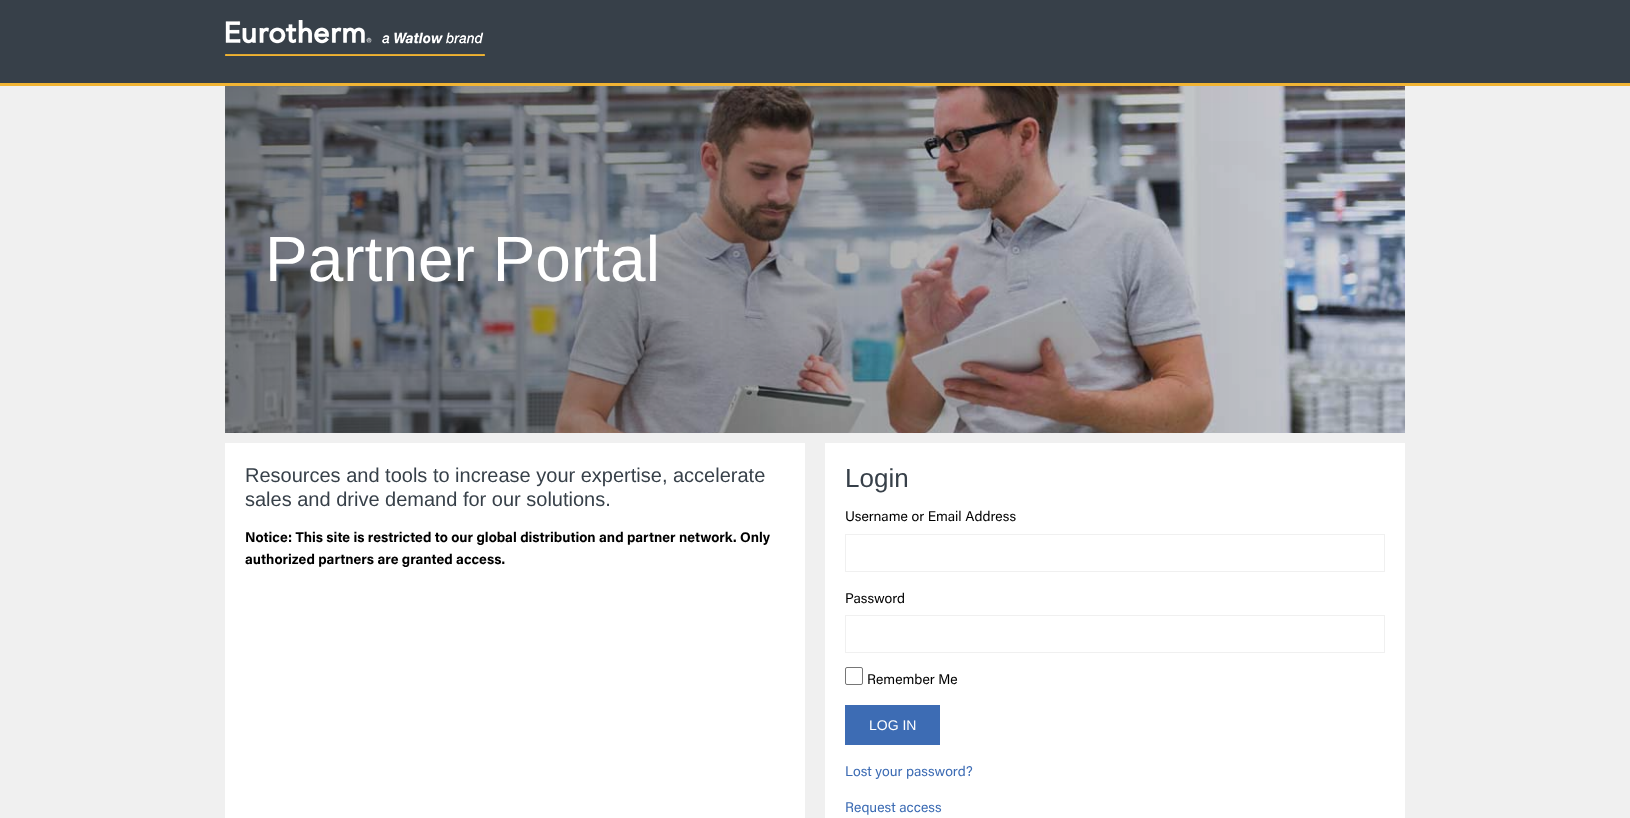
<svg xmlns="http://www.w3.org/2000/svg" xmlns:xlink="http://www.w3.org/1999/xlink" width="1630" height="818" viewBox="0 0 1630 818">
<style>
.cls-1{font:64px Liberation Sans;fill:#ffffff}
.cls-2{font:20px Liberation Sans;fill:#374049}
.cls-3{font:bold 14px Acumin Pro;fill:#000000}
.cls-4{font:26px Liberation Sans;fill:#374049}
.cls-5{font:14px Acumin Pro;fill:#000000}
.cls-6{font:14px Liberation Sans;fill:#ffffff}
.cls-7{font:14px Acumin Pro;fill:#3d6cb4}
</style>
<rect width="100%" height="100%" fill="#f0f0f0"/>
<rect fill="#374049" x="0" y="0" width="1630" height="83"/>
<rect fill="#f1b434" x="0" y="83" width="1630" height="3"/>
<image xlink:href="image0.png" x="225" y="20" width="260" height="36"/>
<image xlink:href="image1.png" x="225" y="86" width="1180" height="347"/>
<rect fill="#ffffff" x="225" y="443" width="580" height="375"/>
<rect fill="#ffffff" x="825" y="443" width="580" height="375"/>
<rect fill="none" stroke="#f0f0f0" x="845.5" y="534.5" width="539" height="37"/>
<rect fill="none" stroke="#f0f0f0" x="845.5" y="615.5" width="539" height="37"/>
<rect fill="none" stroke="#767676" x="845.5" y="667.5" width="17" height="17" rx="1.5"/>
<rect fill="#3d6cb4" x="845" y="705" width="95" height="40"/>
<text class="cls-1" x="265" y="281">Partner Portal</text>
<text class="cls-2"><tspan x="245" y="482">Resources and tools to increase your expertise, accelerate</tspan><tspan x="245" y="506">sales and drive demand for our solutions.</tspan></text>
<text class="cls-3"><tspan x="245" y="542">Notice: This site is restricted to our global distribution and partner network. Only</tspan><tspan x="245" y="564">authorized partners are granted access.</tspan></text>
<text class="cls-4" x="845" y="487">Login</text>
<text class="cls-5" x="845" y="521">Username or Email Address</text>
<text class="cls-5" x="845" y="603">Password</text>
<text class="cls-5" x="867" y="684">Remember Me</text>
<text class="cls-6" x="869" y="730">LOG IN</text>
<text class="cls-7" x="845" y="776">Lost your password?</text>
<text class="cls-7" x="845" y="812">Request access</text>
</svg>
